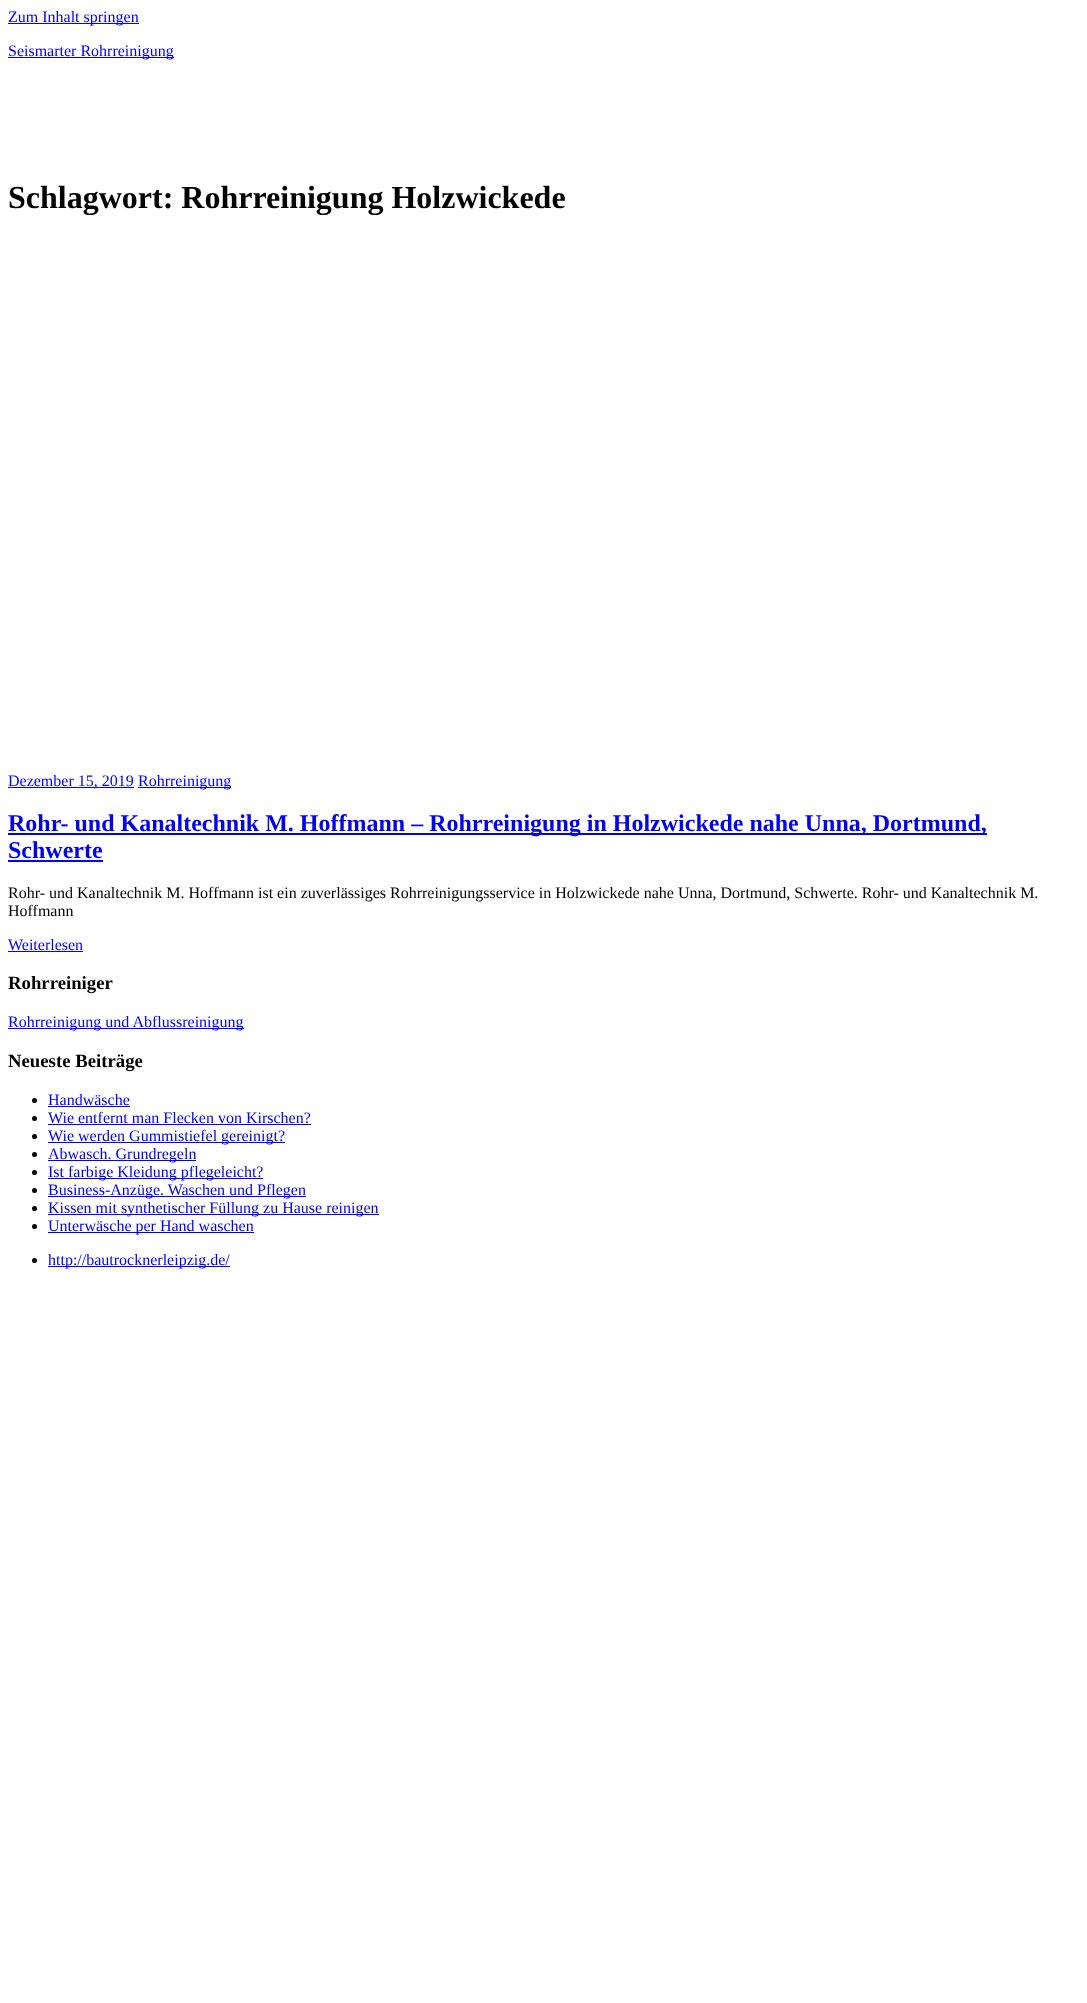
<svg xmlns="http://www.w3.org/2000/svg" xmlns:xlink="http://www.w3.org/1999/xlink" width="1087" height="2003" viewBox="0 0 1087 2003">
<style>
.cls-1{font:16px Liberation Serif;fill:#0000ee}
.cls-2{font:bold 32px Liberation Serif;fill:#000000}
.cls-3{font:bold 24px Liberation Serif;fill:#0000ee}
.cls-4{font:16px Liberation Serif;fill:#000000}
.cls-5{font:bold 18.75px Liberation Serif;fill:#000000}
</style>
<rect width="100%" height="100%" fill="#ffffff"/>
<rect fill="#0000ee" x="8" y="23" width="131" height="1"/>
<rect fill="#0000ee" x="8" y="57" width="166" height="1"/>
<rect fill="#0000ee" x="8" y="787" width="126" height="1"/>
<rect fill="#0000ee" x="138" y="787" width="93" height="1"/>
<rect fill="#0000ee" x="8" y="833" width="979" height="2"/>
<rect fill="#0000ee" x="8" y="860" width="95" height="2"/>
<rect fill="#0000ee" x="8" y="951" width="75" height="1"/>
<rect fill="#0000ee" x="8" y="1028" width="236" height="1"/>
<circle fill="#000000" cx="34.5" cy="1100.5" r="2.5"/>
<rect fill="#0000ee" x="48" y="1106" width="82" height="1"/>
<circle fill="#000000" cx="34.5" cy="1118.5" r="2.5"/>
<rect fill="#0000ee" x="48" y="1124" width="263" height="1"/>
<circle fill="#000000" cx="34.5" cy="1136.5" r="2.5"/>
<rect fill="#0000ee" x="48" y="1142" width="237" height="1"/>
<circle fill="#000000" cx="34.5" cy="1154.5" r="2.5"/>
<rect fill="#0000ee" x="48" y="1160" width="148" height="1"/>
<circle fill="#000000" cx="34.5" cy="1172.5" r="2.5"/>
<rect fill="#0000ee" x="48" y="1178" width="215" height="1"/>
<circle fill="#000000" cx="34.5" cy="1190.5" r="2.5"/>
<rect fill="#0000ee" x="48" y="1196" width="258" height="1"/>
<circle fill="#000000" cx="34.5" cy="1208.5" r="2.5"/>
<rect fill="#0000ee" x="48" y="1214" width="331" height="1"/>
<circle fill="#000000" cx="34.5" cy="1226.5" r="2.5"/>
<rect fill="#0000ee" x="48" y="1232" width="206" height="1"/>
<circle fill="#000000" cx="34.5" cy="1260.5" r="2.5"/>
<rect fill="#0000ee" x="48" y="1266" width="182" height="1"/>
<text class="cls-1" x="8" y="22">Zum Inhalt springen</text>
<text class="cls-1" x="8" y="56">Seismarter Rohrreinigung</text>
<text class="cls-2" x="8" y="208">Schlagwort: Rohrreinigung Holzwickede</text>
<text class="cls-1" x="8" y="786">Dezember 15, 2019</text>
<text class="cls-1" x="138" y="786">Rohrreinigung</text>
<text class="cls-3"><tspan x="8" y="831">Rohr- und Kanaltechnik M. Hoffmann – Rohrreinigung in Holzwickede nahe Unna, Dortmund,</tspan><tspan x="8" y="858">Schwerte</tspan></text>
<text class="cls-4"><tspan x="8" y="898">Rohr- und Kanaltechnik M. Hoffmann ist ein zuverlässiges Rohrreinigungsservice in Holzwickede nahe Unna, Dortmund, Schwerte. Rohr- und Kanaltechnik M.</tspan><tspan x="8" y="916">Hoffmann</tspan></text>
<text class="cls-1" x="8" y="950">Weiterlesen</text>
<text class="cls-5" x="8" y="989">Rohrreiniger</text>
<text class="cls-1" x="8" y="1027">Rohrreinigung und Abflussreinigung</text>
<text class="cls-5" x="8" y="1067">Neueste Beiträge</text>
<text class="cls-1"><tspan x="48" y="1105">Handwäsche</tspan><tspan x="48" y="1123">Wie entfernt man Flecken von Kirschen?</tspan><tspan x="48" y="1141">Wie werden Gummistiefel gereinigt?</tspan><tspan x="48" y="1159">Abwasch. Grundregeln</tspan><tspan x="48" y="1177">Ist farbige Kleidung pflegeleicht?</tspan><tspan x="48" y="1195">Business-Anzüge. Waschen und Pflegen</tspan><tspan x="48" y="1213">Kissen mit synthetischer Füllung zu Hause reinigen</tspan><tspan x="48" y="1231">Unterwäsche per Hand waschen</tspan></text>
<text class="cls-1" x="48" y="1265">http://bautrocknerleipzig.de/</text>
</svg>
